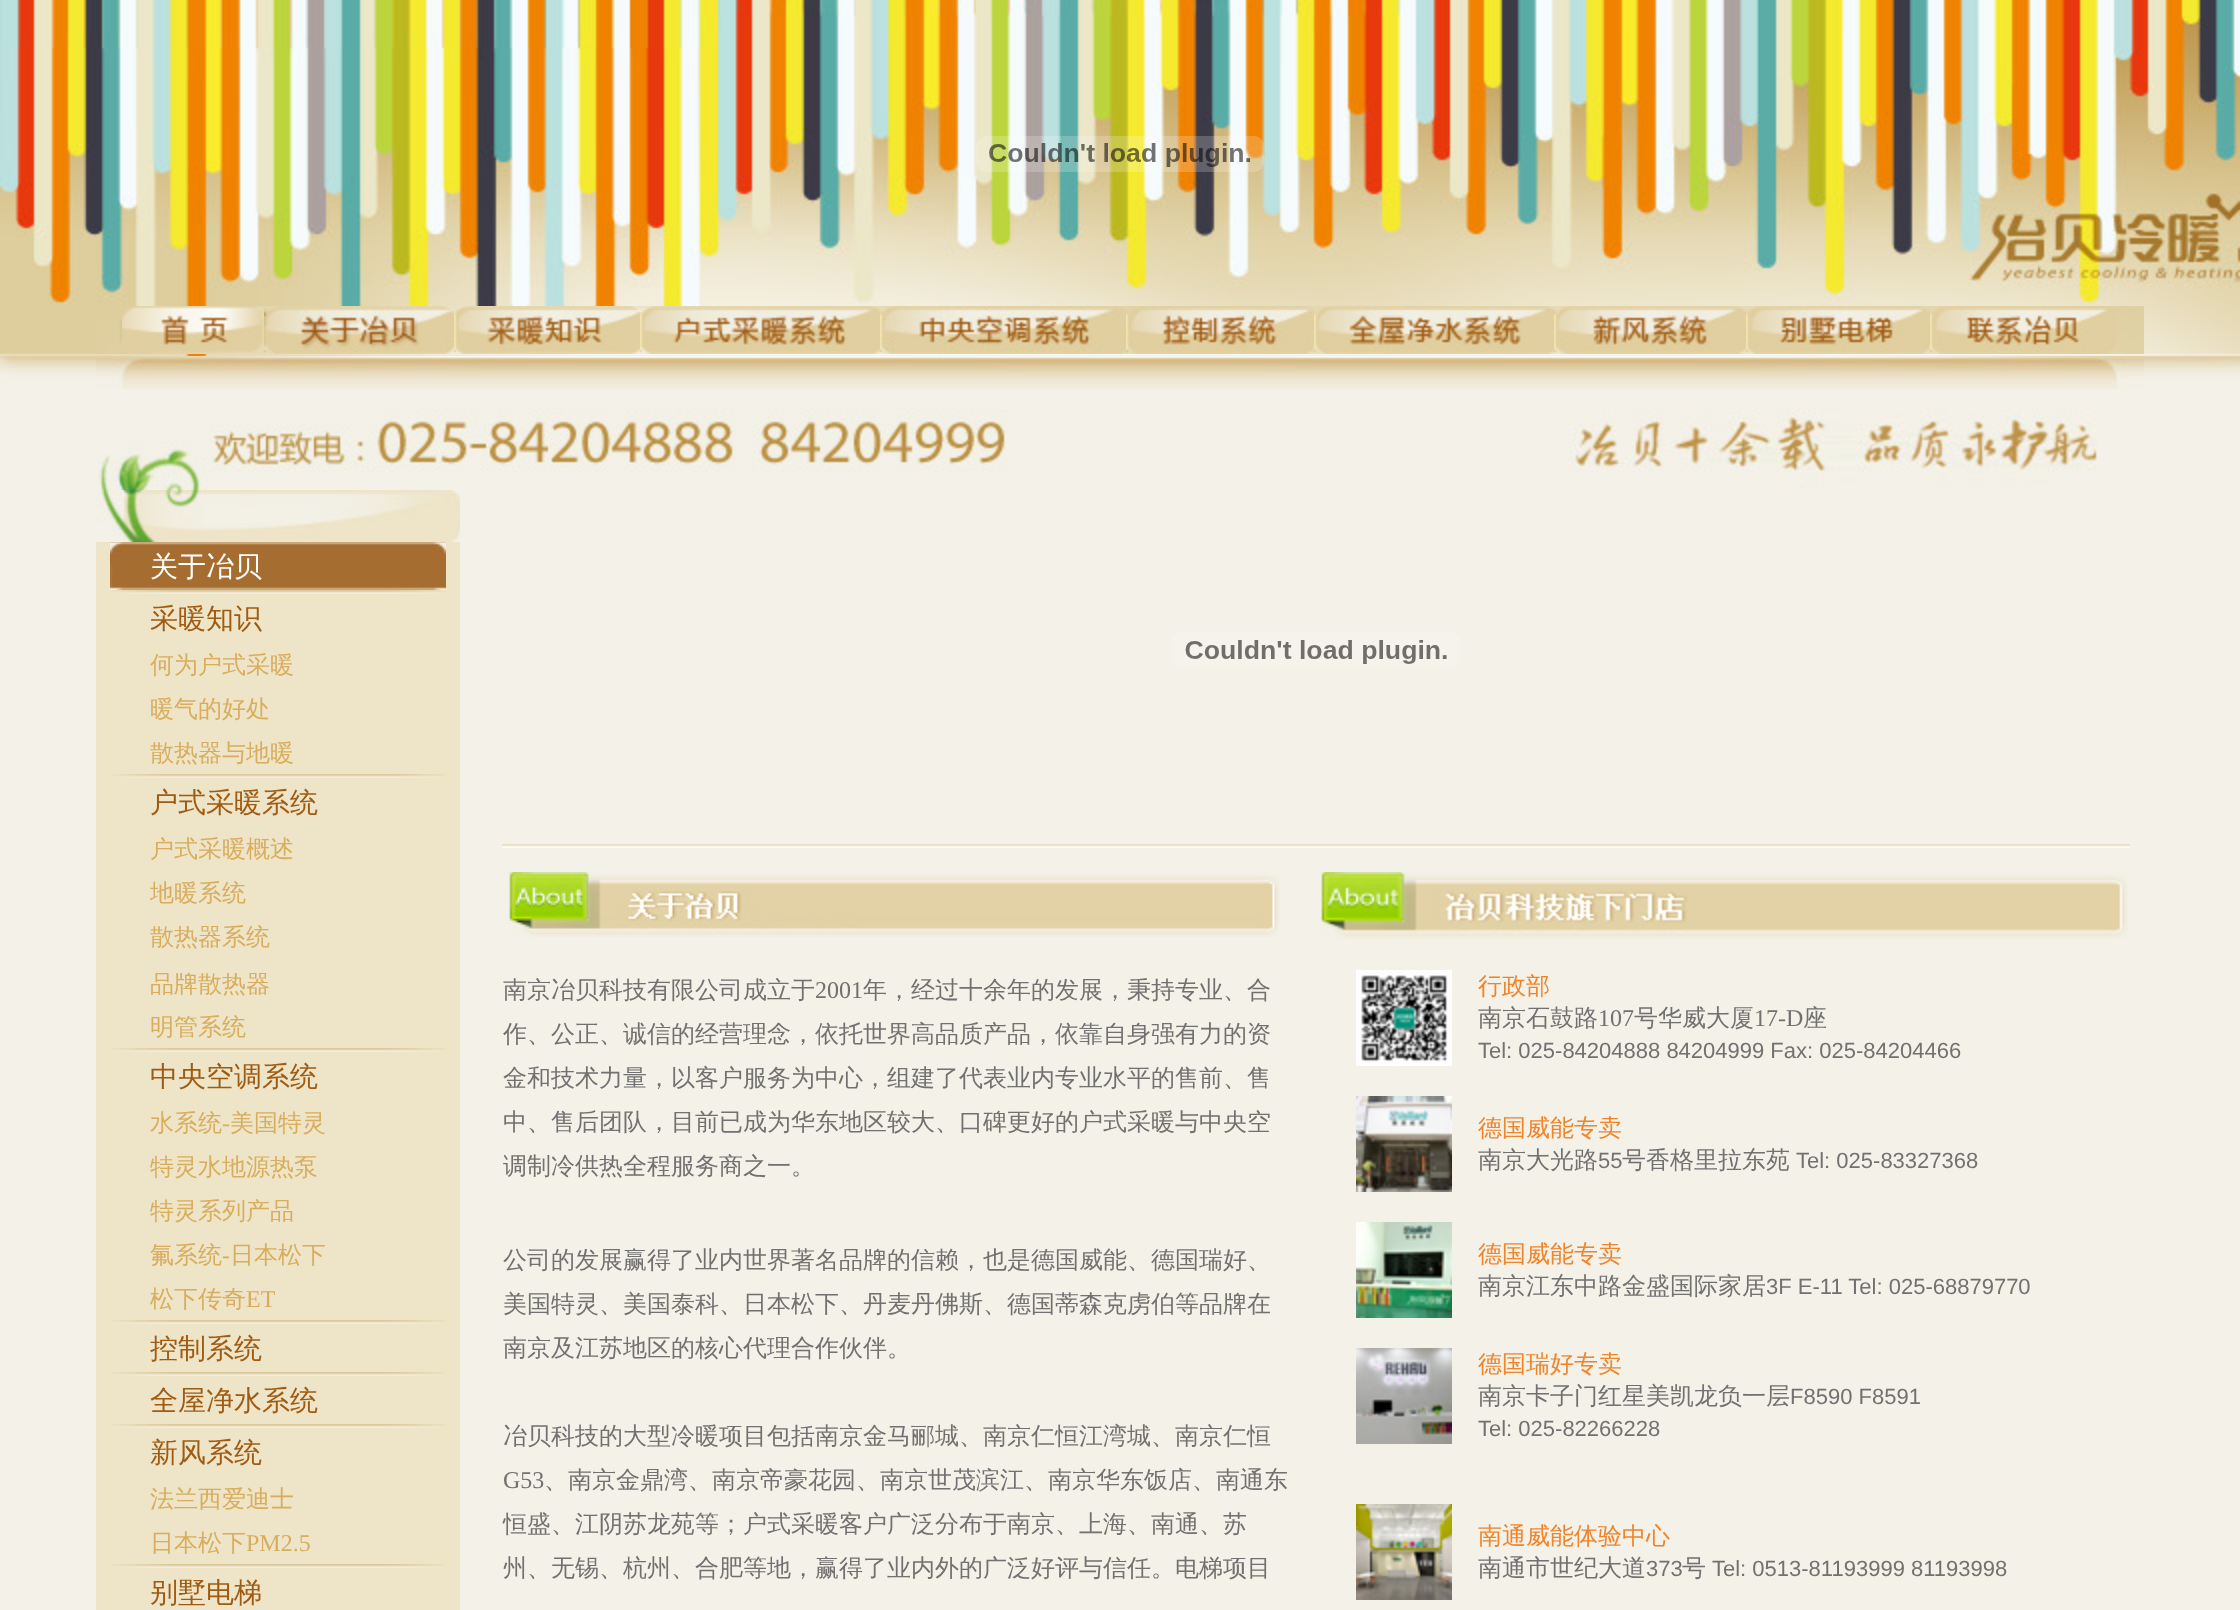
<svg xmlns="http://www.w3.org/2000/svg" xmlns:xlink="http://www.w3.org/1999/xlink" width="2240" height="1610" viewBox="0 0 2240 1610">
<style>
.cls-1{font:500 28px WenQuanYi Zen Hei;fill:#ffffff}
.cls-2{font:500 28px WenQuanYi Zen Hei;fill:#a05b12}
.cls-3{font:500 24px WenQuanYi Zen Hei;fill:#d8ad5d}
.cls-4{font:24px Liberation Serif;fill:#d8ad5d}
.cls-5{font:500 24px WenQuanYi Zen Hei;fill:#727171}
.cls-6{font:24px Liberation Serif;fill:#727171}
.cls-7{font:500 24px WenQuanYi Zen Hei;fill:#ee852b}
.cls-8{font:22px Liberation Sans;fill:#727171}
</style>
<rect width="100%" height="100%" fill="#ffffff"/>
<image xlink:href="image0.png" x="0" y="0" width="2240" height="1610"/>
<image xlink:href="image1.png" x="976" y="136" width="288" height="36"/>
<image xlink:href="image2.png" x="96" y="320" width="26" height="34"/>
<image xlink:href="image3.png" x="122" y="306" width="142" height="48"/>
<image xlink:href="image4.png" x="264" y="306" width="190" height="48"/>
<image xlink:href="image5.png" x="454" y="306" width="186" height="48"/>
<image xlink:href="image6.png" x="640" y="306" width="240" height="48"/>
<image xlink:href="image7.png" x="880" y="306" width="246" height="48"/>
<image xlink:href="image8.png" x="1126" y="306" width="188" height="48"/>
<image xlink:href="image9.png" x="1314" y="306" width="240" height="48"/>
<image xlink:href="image10.png" x="1554" y="306" width="192" height="48"/>
<image xlink:href="image11.png" x="1746" y="306" width="184" height="48"/>
<image xlink:href="image12.png" x="1930" y="306" width="188" height="48"/>
<image xlink:href="image13.png" x="2118" y="306" width="26" height="48"/>
<image xlink:href="image14.png" x="96" y="356" width="2048" height="34"/>
<image xlink:href="image15.png" x="98" y="408" width="1999" height="82"/>
<rect fill="#eee5c8" x="96" y="542" width="364" height="1068"/>
<image xlink:href="image16.png" x="96" y="490" width="364" height="52"/>
<image xlink:href="image17.png" x="110" y="542" width="336" height="48"/>
<image xlink:href="image18.png" x="111" y="590" width="335" height="4"/>
<image xlink:href="image18.png" x="111" y="774" width="335" height="4"/>
<image xlink:href="image18.png" x="111" y="1048" width="335" height="4"/>
<image xlink:href="image18.png" x="111" y="1320" width="335" height="4"/>
<image xlink:href="image18.png" x="111" y="1372" width="335" height="4"/>
<image xlink:href="image18.png" x="111" y="1424" width="335" height="4"/>
<image xlink:href="image18.png" x="111" y="1564" width="335" height="4"/>
<image xlink:href="image19.png" x="1172" y="632" width="288" height="36"/>
<image xlink:href="image20.png" x="502" y="844" width="1628" height="4"/>
<image xlink:href="image21.png" x="508" y="872" width="772" height="65"/>
<image xlink:href="image22.png" x="1320" y="872" width="808" height="67"/>
<image xlink:href="image23.png" x="1356" y="970" width="96" height="96"/>
<image xlink:href="image24.png" x="1356" y="1096" width="96" height="96"/>
<image xlink:href="image25.png" x="1356" y="1222" width="96" height="96"/>
<image xlink:href="image26.png" x="1356" y="1348" width="96" height="96"/>
<image xlink:href="image27.png" x="1356" y="1504" width="96" height="96"/>
<text class="cls-1" x="150" y="576">关于冶贝</text>
<text class="cls-2" x="150" y="628">采暖知识</text>
<text class="cls-3"><tspan x="150" y="673">何为户式采暖</tspan><tspan x="150" y="717">暖气的好处</tspan><tspan x="150" y="761">散热器与地暖</tspan></text>
<text class="cls-2" x="150" y="812">户式采暖系统</text>
<text class="cls-3"><tspan x="150" y="857">户式采暖概述</tspan><tspan x="150" y="901">地暖系统</tspan><tspan x="150" y="945">散热器系统</tspan><tspan x="150" y="992">品牌散热器</tspan><tspan x="150" y="1035">明管系统</tspan></text>
<text class="cls-2" x="150" y="1086">中央空调系统</text>
<text class="cls-3" x="150" y="1131">水系统</text>
<text class="cls-4" x="222" y="1131">-</text>
<text class="cls-3" x="230" y="1131">美国特灵</text>
<text class="cls-3"><tspan x="150" y="1175">特灵水地源热泵</tspan><tspan x="150" y="1219">特灵系列产品</tspan><tspan x="150" y="1263">氟系统</tspan></text>
<text class="cls-4" x="222" y="1263">-</text>
<text class="cls-3" x="230" y="1263">日本松下</text>
<text class="cls-3" x="150" y="1307">松下传奇</text>
<text class="cls-4" x="246" y="1307">ET</text>
<text class="cls-2"><tspan x="150" y="1358">控制系统</tspan><tspan x="150" y="1410">全屋净水系统</tspan><tspan x="150" y="1462">新风系统</tspan></text>
<text class="cls-3"><tspan x="150" y="1507">法兰西爱迪士</tspan><tspan x="150" y="1551">日本松下</tspan></text>
<text class="cls-4" x="246" y="1551">PM2.5</text>
<text class="cls-2" x="150" y="1602">别墅电梯</text>
<text class="cls-5" x="503" y="998">南京冶贝科技有限公司成立于</text>
<text class="cls-6" x="815" y="998">2001</text>
<text class="cls-5" x="863" y="998">年，经过十余年的发展，秉持专业、合</text>
<text class="cls-5"><tspan x="503" y="1042">作、公正、诚信的经营理念，依托世界高品质产品，依靠自身强有力的资</tspan><tspan x="503" y="1086">金和技术力量，以客户服务为中心，组建了代表业内专业水平的售前、售</tspan><tspan x="503" y="1130">中、售后团队，目前已成为华东地区较大、口碑更好的户式采暖与中央空</tspan><tspan x="503" y="1174">调制冷供热全程服务商之一。</tspan></text>
<text class="cls-5"><tspan x="503" y="1268">公司的发展赢得了业内世界著名品牌的信赖，也是德国威能、德国瑞好、</tspan><tspan x="503" y="1312">美国特灵、美国泰科、日本松下、丹麦丹佛斯、德国蒂森克虏伯等品牌在</tspan><tspan x="503" y="1356">南京及江苏地区的核心代理合作伙伴。</tspan></text>
<text class="cls-5" x="503" y="1444">冶贝科技的大型冷暖项目包括南京金马郦城、南京仁恒江湾城、南京仁恒</text>
<text class="cls-6" x="503" y="1488">G53</text>
<text class="cls-5" x="544" y="1488">、南京金鼎湾、南京帝豪花园、南京世茂滨江、南京华东饭店、南通东</text>
<text class="cls-5"><tspan x="503" y="1532">恒盛、江阴苏龙苑等；户式采暖客户广泛分布于南京、上海、南通、苏</tspan><tspan x="503" y="1576">州、无锡、杭州、合肥等地，赢得了业内外的广泛好评与信任。电梯项目</tspan></text>
<text class="cls-7" x="1478" y="994">行政部</text>
<text class="cls-5" x="1478" y="1026">南京石鼓路</text>
<text class="cls-6" x="1598" y="1026">107</text>
<text class="cls-5" x="1634" y="1026">号华威大厦</text>
<text class="cls-6" x="1754" y="1026">17-D</text>
<text class="cls-5" x="1803" y="1026">座</text>
<text class="cls-8" x="1478" y="1058">Tel: 025-84204888 84204999 Fax: 025-84204466</text>
<text class="cls-7" x="1478" y="1136">德国威能专卖</text>
<text class="cls-5" x="1478" y="1168">南京大光路</text>
<text class="cls-8" x="1598" y="1168">55</text>
<text class="cls-5" x="1622" y="1168">号香格里拉东苑</text>
<text class="cls-8" x="1796" y="1168">Tel: 025-83327368</text>
<text class="cls-7" x="1478" y="1262">德国威能专卖</text>
<text class="cls-5" x="1478" y="1294">南京江东中路金盛国际家居</text>
<text class="cls-8" x="1766" y="1294">3F E-11 Tel: 025-68879770</text>
<text class="cls-7" x="1478" y="1372">德国瑞好专卖</text>
<text class="cls-5" x="1478" y="1404">南京卡子门红星美凯龙负一层</text>
<text class="cls-8" x="1790" y="1404">F8590 F8591</text>
<text class="cls-8" x="1478" y="1436">Tel: 025-82266228</text>
<text class="cls-7" x="1478" y="1544">南通威能体验中心</text>
<text class="cls-5" x="1478" y="1576">南通市世纪大道</text>
<text class="cls-8" x="1646" y="1576">373</text>
<text class="cls-5" x="1682" y="1576">号</text>
<text class="cls-8" x="1712" y="1576">Tel: 0513-81193999 81193998</text>
</svg>
